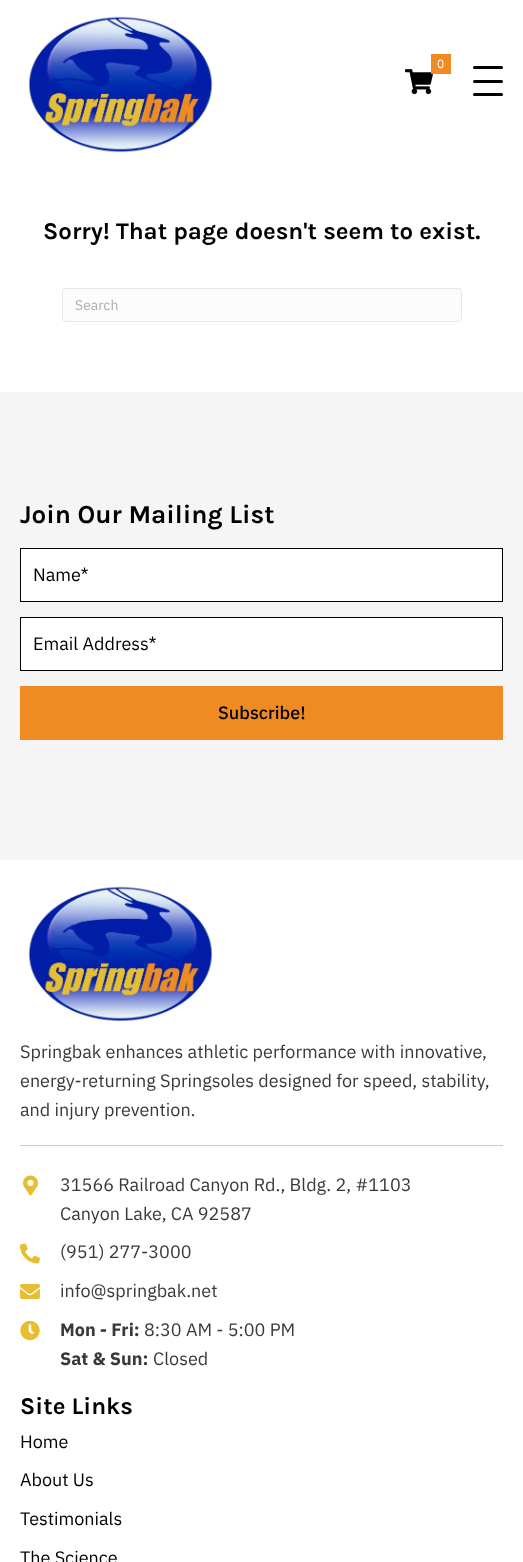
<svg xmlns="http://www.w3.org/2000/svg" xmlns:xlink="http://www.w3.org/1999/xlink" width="523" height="1562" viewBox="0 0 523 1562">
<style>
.cls-1{font:12px IBM Plex Sans;fill:#ffffff}
.cls-2{font:bold 24px Karla;fill:#000000}
.cls-3{font:14px IBM Plex Sans;fill:#aeaeae}
.cls-4{font:bold 26px Karla;fill:#000000}
.cls-5{font:18px IBM Plex Sans;fill:#000000}
.cls-6{font:500 18px IBM Plex Sans;fill:#000000}
.cls-7{font:18px IBM Plex Sans;fill:#393939}
.cls-8{font:bold 18px IBM Plex Sans;fill:#393939}
</style>
<rect width="100%" height="100%" fill="#ffffff"/>
<image xlink:href="image0.png" x="28" y="16" width="185" height="137"/>
<image xlink:href="image1.png" x="405" y="69" width="28" height="26"/>
<rect fill="#ef8b22" x="431" y="54" width="20" height="20"/>
<rect fill="#000000" x="473" y="80" width="30" height="3" rx="1.5"/>
<rect fill="#000000" x="473" y="66" width="30" height="3" rx="1.5"/>
<rect fill="#000000" x="473" y="93" width="30" height="3" rx="1.5"/>
<rect fill="#fcfcfc" stroke="#e6e6e6" x="62.5" y="288.5" width="399" height="33" rx="3.5"/>
<rect fill="#f5f5f5" x="0" y="392" width="523" height="468"/>
<rect fill="#ffffff" stroke="#000000" x="20.5" y="548.5" width="482" height="53"/>
<rect fill="#ffffff" stroke="#000000" x="20.5" y="617.5" width="482" height="53"/>
<rect fill="#ef8b22" x="20" y="686" width="483" height="54"/>
<image xlink:href="image2.png" x="28" y="886" width="185" height="136"/>
<rect fill="#cccccc" x="20" y="1145" width="483" height="1"/>
<image xlink:href="image3.png" x="23" y="1175" width="15" height="21"/>
<image xlink:href="image4.png" x="20" y="1243" width="20" height="21"/>
<image xlink:href="image5.png" x="20" y="1284" width="20" height="15"/>
<image xlink:href="image6.png" x="20" y="1320" width="20" height="21"/>
<text class="cls-1" x="437" y="68">0</text>
<text class="cls-2" x="43" y="239">Sorry! That page doesn't seem to exist.</text>
<text class="cls-3" x="75" y="310">Search</text>
<text class="cls-4" x="20" y="523">Join Our Mailing List</text>
<text class="cls-5" x="33" y="581">Name*</text>
<text class="cls-5" x="33" y="650">Email Address*</text>
<text class="cls-6" x="218" y="719">Subscribe!</text>
<text class="cls-7"><tspan x="20" y="1058">Springbak enhances athletic performance with innovative,</tspan><tspan x="20" y="1087">energy-returning Springsoles designed for speed, stability,</tspan><tspan x="20" y="1116">and injury prevention.</tspan></text>
<text class="cls-7"><tspan x="60" y="1191">31566 Railroad Canyon Rd., Bldg. 2, #1103</tspan><tspan x="60" y="1220">Canyon Lake, CA 92587</tspan></text>
<text class="cls-7" x="60" y="1258">(951) 277-3000</text>
<text class="cls-7" x="60" y="1297">info@springbak.net</text>
<text class="cls-8" x="60" y="1336">Mon - Fri:</text>
<text class="cls-7" x="144" y="1336">8:30 AM - 5:00 PM</text>
<text class="cls-8" x="60" y="1365">Sat &amp; Sun:</text>
<text class="cls-7" x="153" y="1365">Closed</text>
<text class="cls-2" x="20" y="1414">Site Links</text>
<text class="cls-5" x="20" y="1448">Home</text>
<text class="cls-5" x="20" y="1486">About Us</text>
<text class="cls-5" x="20" y="1525">Testimonials</text>
<text class="cls-5" x="20" y="1564">The Science</text>
</svg>
